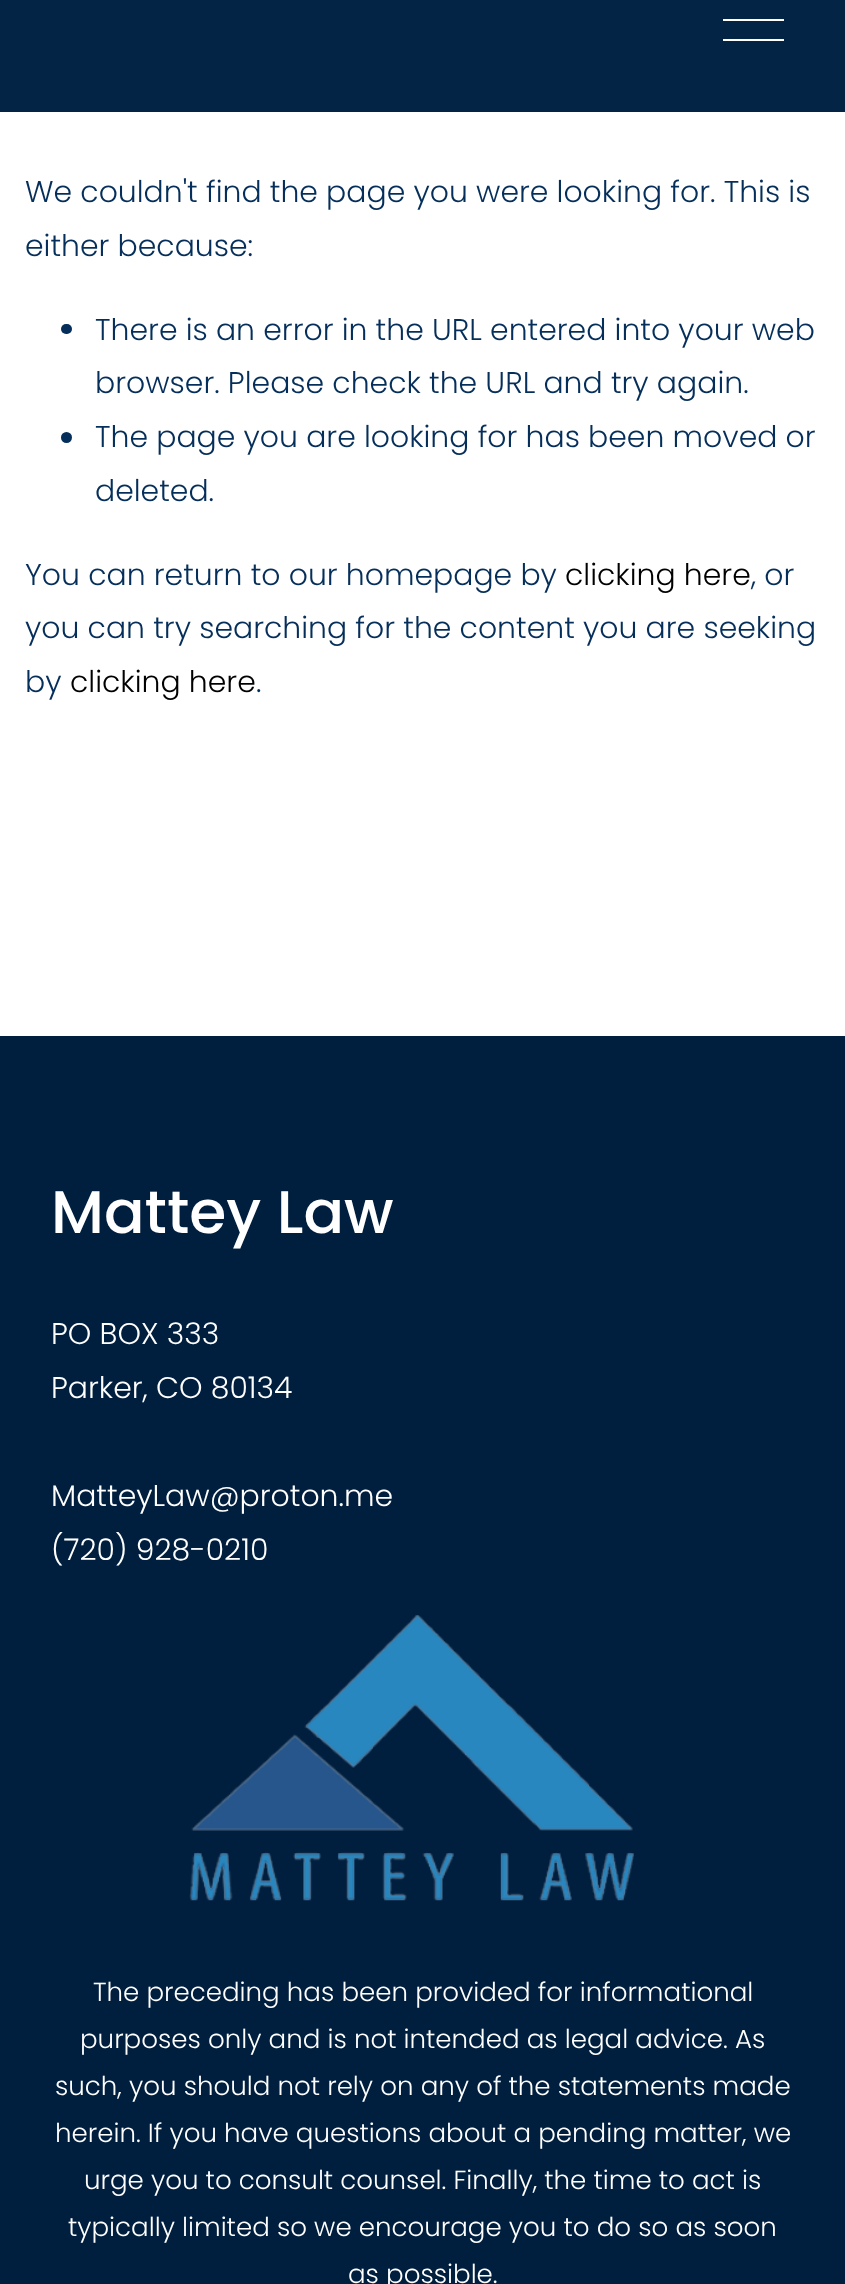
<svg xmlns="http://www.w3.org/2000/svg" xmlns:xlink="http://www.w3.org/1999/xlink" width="845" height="2284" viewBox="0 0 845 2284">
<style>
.cls-1{font:300 29.9px Poppins;fill:#052f5a}
.cls-2{font:300 29.9px Poppins;fill:#000000}
.cls-3{font:500 60px Poppins;fill:#ffffff}
.cls-4{font:300 29.9px Poppins;fill:#ffffff}
.cls-5{font:300 26.1px Poppins;fill:#ffffff}
</style>
<rect width="100%" height="100%" fill="#ffffff"/>
<rect fill="#032445" x="0" y="0" width="845" height="112"/>
<rect fill="#ffffff" x="723" y="19" width="61" height="2"/>
<rect fill="#ffffff" x="723" y="39" width="61" height="2"/>
<rect fill="#052f5a" x="61" y="324" width="11" height="10" rx="5"/>
<circle fill="#052f5a" cx="66.5" cy="437.5" r="5.5"/>
<rect fill="#001f3f" x="0" y="1036" width="845" height="1248"/>
<image xlink:href="image0.png" x="189" y="1615" width="445" height="286"/>
<text class="cls-1"><tspan x="25" y="202">We couldn't find the page you were looking for. This is</tspan><tspan x="25" y="256">either because:</tspan></text>
<text class="cls-1"><tspan x="95" y="340">There is an error in the URL entered into your web</tspan><tspan x="95" y="393">browser. Please check the URL and try again.</tspan><tspan x="95" y="447">The page you are looking for has been moved or</tspan><tspan x="95" y="501">deleted.</tspan></text>
<text class="cls-1" x="25" y="585">You can return to our homepage by</text>
<text class="cls-2" x="565" y="585">clicking here</text>
<text class="cls-1" x="751" y="585">, or</text>
<text class="cls-1"><tspan x="25" y="638">you can try searching for the content you are seeking</tspan><tspan x="25" y="692">by</tspan></text>
<text class="cls-2" x="70" y="692">clicking here</text>
<text class="cls-1" x="256" y="692">.</text>
<text class="cls-3" x="51" y="1233">Mattey Law</text>
<text class="cls-4"><tspan x="51" y="1344">PO BOX 333</tspan><tspan x="51" y="1398">Parker, CO 80134</tspan></text>
<text class="cls-4"><tspan x="51" y="1506">MatteyLaw@proton.me</tspan><tspan x="51" y="1560">(720) 928-0210</tspan></text>
<text class="cls-5" x="93" y="2001">The preceding has been provided for informational</text>
<text class="cls-5" x="80" y="2048">purposes only and is not intended as legal advice. As</text>
<text class="cls-5"><tspan x="55" y="2095">such, you should not rely on any of the statements made</tspan><tspan x="55" y="2142">herein. If you have questions about a pending matter, we</tspan></text>
<text class="cls-5" x="84" y="2189">urge you to consult counsel. Finally, the time to act is</text>
<text class="cls-5" x="68" y="2236">typically limited so we encourage you to do so as soon</text>
<text class="cls-5" x="348" y="2283">as possible.</text>
</svg>
